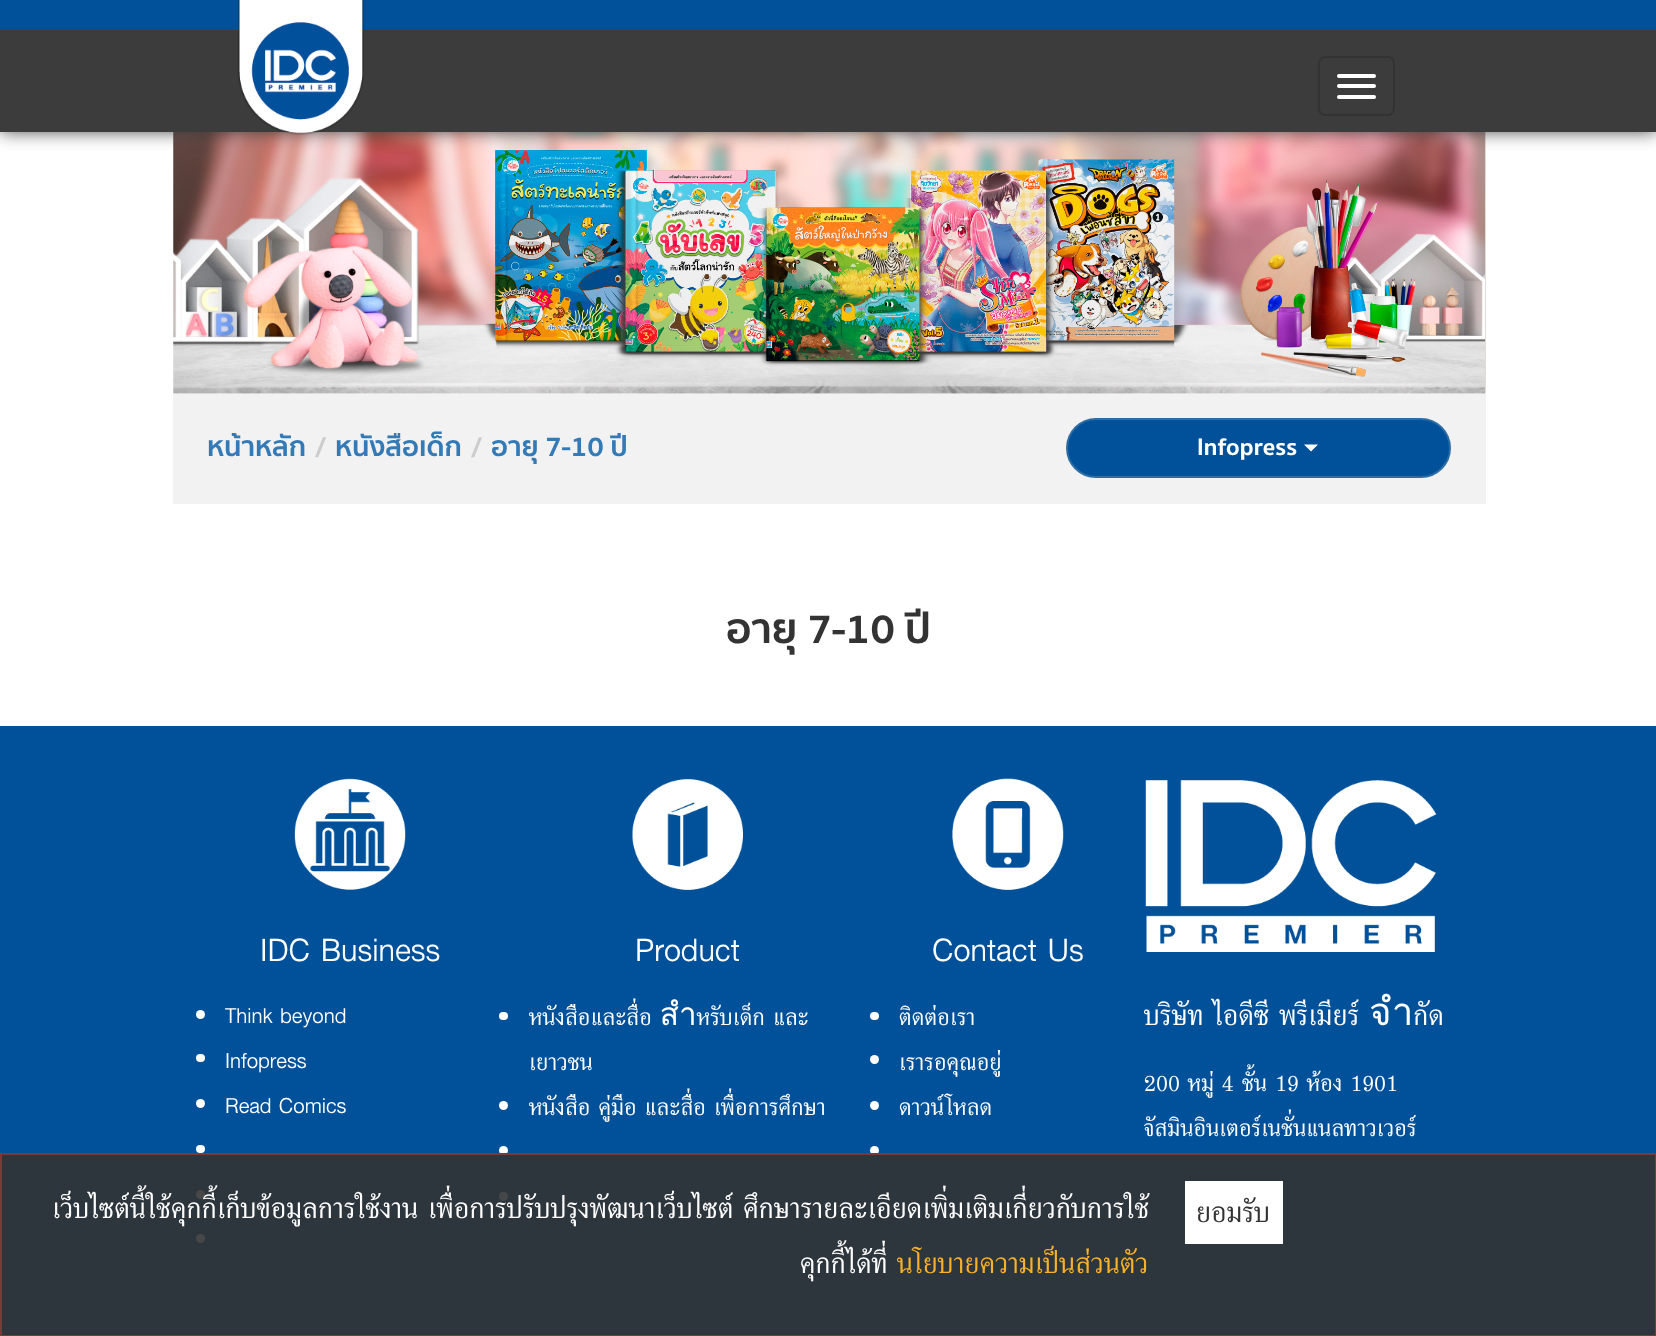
<svg xmlns="http://www.w3.org/2000/svg" xmlns:xlink="http://www.w3.org/1999/xlink" width="1656" height="1336" viewBox="0 0 1656 1336">
<style>
.cls-1{font:bold 28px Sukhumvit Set;fill:#337ab7}
.cls-2{font:bold 28px Sukhumvit Set;fill:#cccccc}
.cls-3{font:bold 24.5px Sukhumvit Set;fill:#ffffff}
.cls-4{font:bold 42px Sukhumvit Set;fill:#333333}
.cls-5{font:47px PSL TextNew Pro;fill:#ffffff}
.cls-6{font:31.5px PSL TextNew Pro;fill:#ffffff}
.cls-7{font:31.5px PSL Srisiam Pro;fill:#ffffff}
.cls-8{font:38.5px PSL Srisiam Pro;fill:#ffffff}
.cls-9{font:38.5px PSL Srisiam Pro;fill:#fab127}
.cls-10{font:38.5px PSL Srisiam Pro;fill:#333333}
</style>
<rect width="100%" height="100%" fill="#ffffff"/>
<image xlink:href="image1.png" x="173" y="132" width="1313" height="262"/>
<rect fill="#3d3c3c" filter="blur(9px)" x="0" y="0" width="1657" height="131"/>
<rect fill="#3d3c3c" x="0" y="30" width="1656" height="102"/>
<rect fill="#00519a" x="0" y="0" width="1656" height="30"/>
<image xlink:href="image0.png" x="237" y="0" width="128" height="135"/>
<rect fill="none" stroke="#333333" stroke-width="2" x="1319" y="57" width="75" height="58" rx="6"/>
<rect fill="#ffffff" x="1337" y="74" width="39" height="4" rx="2"/>
<rect fill="#ffffff" x="1337" y="84" width="39" height="4" rx="2"/>
<rect fill="#ffffff" x="1337" y="95" width="39" height="4" rx="2"/>
<rect fill="#f2f2f2" x="173" y="394" width="1313" height="110"/>
<rect fill="#00519a" stroke="#2e6da4" stroke-width="2" x="1067" y="419" width="383" height="58" rx="29"/>
<path fill="#ffffff" d="M1304 444.5H1318L1311 451.5Z"/>
<rect fill="#00519a" x="0" y="726" width="1656" height="609"/>
<image xlink:href="image2.png" x="294" y="778" width="112" height="112"/>
<circle fill="#ffffff" cx="200.5" cy="1014.5" r="4.5"/>
<rect fill="#ffffff" x="196" y="1054" width="9" height="8" rx="4"/>
<circle fill="#ffffff" cx="200.5" cy="1103.5" r="4.5"/>
<rect fill="#ffffff" x="196" y="1145" width="9" height="8" rx="4"/>
<circle fill="#ffffff" cx="200.5" cy="1194.5" r="4.5"/>
<circle fill="#ffffff" cx="200.5" cy="1238.5" r="4.5"/>
<image xlink:href="image3.png" x="632" y="779" width="111" height="111"/>
<rect fill="#ffffff" x="499" y="1012" width="9" height="8" rx="4"/>
<circle fill="#ffffff" cx="503.5" cy="1105.5" r="4.5"/>
<circle fill="#ffffff" cx="503.5" cy="1150.5" r="4.5"/>
<circle fill="#ffffff" cx="503.5" cy="1196.5" r="4.5"/>
<image xlink:href="image4.png" x="952" y="778" width="112" height="112"/>
<rect fill="#ffffff" x="870" y="1012" width="9" height="8" rx="4"/>
<circle fill="#ffffff" cx="874.5" cy="1059.5" r="4.5"/>
<circle fill="#ffffff" cx="874.5" cy="1105.5" r="4.5"/>
<circle fill="#ffffff" cx="874.5" cy="1150.5" r="4.5"/>
<image xlink:href="image5.png" x="1145" y="780" width="292" height="172"/>
<rect fill="#333333" fill-opacity="0.9" stroke="#7a3a3a" stroke-width="2" x="1" y="1154" width="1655" height="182"/>
<rect fill="#ffffff" x="1185" y="1181" width="98" height="63"/>
<text class="cls-1" x="207" y="456">หน้าหลัก</text>
<text class="cls-2" x="315" y="456">/</text>
<text class="cls-1" x="335" y="456">หนังสือเด็ก</text>
<text class="cls-2" x="471" y="456">/</text>
<text class="cls-1" x="491" y="456">อายุ 7-10 ปี</text>
<text class="cls-3" x="1197" y="455">Infopress</text>
<text class="cls-4" x="726" y="643">อายุ 7-10 ปี</text>
<text class="cls-5" x="260" y="961">IDC Business</text>
<text class="cls-6"><tspan x="225" y="1023">Think beyond</tspan><tspan x="225" y="1068">Infopress</tspan><tspan x="225" y="1113">Read Comics</tspan></text>
<text class="cls-5" x="635" y="961">Product</text>
<text class="cls-7"><tspan x="529" y="1025">หนังสือและสื่อ สำหรับเด็ก และ</tspan><tspan x="529" y="1070">เยาวชน</tspan><tspan x="529" y="1115">หนังสือ คู่มือ และสื่อ เพื่อการศึกษา</tspan></text>
<text class="cls-5" x="932" y="961">Contact Us</text>
<text class="cls-7"><tspan x="899" y="1025">ติดต่อเรา</tspan><tspan x="899" y="1070">เรารอคุณอยู่</tspan><tspan x="899" y="1115">ดาวน์โหลด</tspan></text>
<text class="cls-8" x="1144" y="1025">บริษัท ไอดีซี พรีเมียร์ จำกัด</text>
<text class="cls-7"><tspan x="1144" y="1091">200 หมู่ 4 ชั้น 19 ห้อง 1901</tspan><tspan x="1144" y="1136">จัสมินอินเตอร์เนชั่นแนลทาวเวอร์</tspan></text>
<text class="cls-8" x="52" y="1218">เว็บไซต์นี้ใช้คุกกี้เก็บข้อมูลการใช้งาน เพื่อการปรับปรุงพัฒนาเว็บไซต์ ศึกษารายละเอียดเพิ่มเติมเกี่ยวกับการใช้</text>
<text class="cls-8" x="800" y="1273">คุกกี้ได้ที่</text>
<text class="cls-9" x="897" y="1273">นโยบายความเป็นส่วนตัว</text>
<text class="cls-10" x="1196" y="1222">ยอมรับ</text>
</svg>
